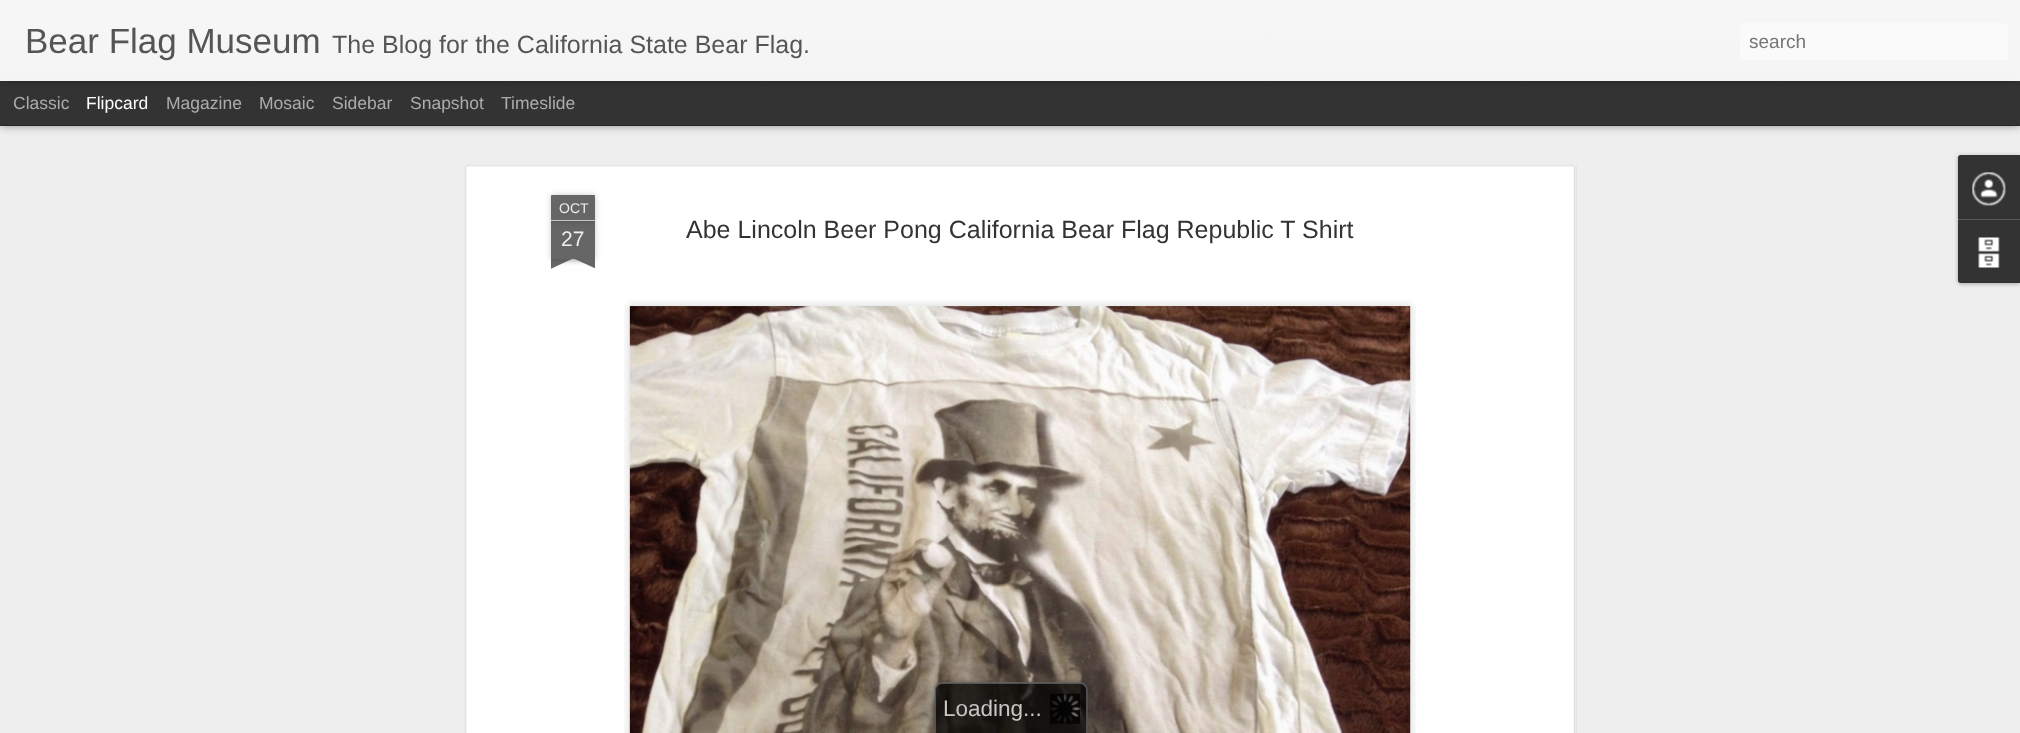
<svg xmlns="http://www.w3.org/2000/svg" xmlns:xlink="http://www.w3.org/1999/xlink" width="2020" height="733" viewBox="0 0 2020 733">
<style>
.cls-1{font:35px Liberation Sans;fill:#555555}
.cls-2{font:25px Liberation Sans;fill:#555555}
.cls-3{font:19px Liberation Sans;fill:#757575}
.cls-4{font:17.5px Liberation Sans;fill:#adadad}
.cls-5{font:17.5px Liberation Sans;fill:#ffffff}
.cls-6{font:14px Liberation Sans;fill:#eeeeee}
.cls-7{font:21px Liberation Sans;fill:#eeeeee}
.cls-8{font:25px Liberation Sans;fill:#333333}
.cls-9{font:22.5px Liberation Sans;fill:#c7c6c5}
</style>
<defs>
<linearGradient id="g1" gradientUnits="userSpaceOnUse" x1="0" y1="0" x2="0" y2="81"><stop offset="0" stop-color="#f7f7f7"/><stop offset="1" stop-color="#f4f4f4"/></linearGradient>
<clipPath id="clip1"><rect x="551" y="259" width="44" height="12"/></clipPath>
<clipPath id="clip2"><rect x="551" y="259" width="44" height="12"/></clipPath>
<clipPath id="clip3"><path d="M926 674H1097V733H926ZM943 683H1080C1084.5 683 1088 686.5 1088 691V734H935V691C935 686.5 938.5 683 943 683Z" clip-rule="evenodd"/></clipPath>
</defs>
<rect width="100%" height="100%" fill="#333333"/>
<rect fill="#eeeeee" x="0" y="126" width="2020" height="607"/>
<rect fill="#000000" fill-opacity="0.5" filter="blur(5px)" x="0" y="81" width="2020" height="44"/>
<rect fill="#333333" x="0" y="81" width="2020" height="44"/>
<rect fill="#000000" fill-opacity="0.3" filter="blur(3px)" x="0" y="0" width="2020" height="81"/>
<rect fill="url(#g1)" x="0" y="0" width="2020" height="81"/>
<rect fill="#fafafa" x="1740" y="23" width="268" height="37" rx="4"/>
<rect fill="#ffffff" x="464" y="164" width="1112" height="569"/>
<image xlink:href="image0.png" x="464" y="164" width="1113" height="569"/>
<rect fill="#000000" fill-opacity="0.2" filter="blur(3px)" x="551" y="221" width="44" height="38"/>
<rect fill="#666666" x="551" y="221" width="44" height="38"/>
<rect fill="#000000" fill-opacity="0.2" filter="blur(3px)" x="551" y="195" width="44" height="26" rx="1"/>
<path fill="#666666" d="M552 195H594C594.5 195 595 195.5 595 196V221H551V196C551 195.5 551.5 195 552 195Z"/>
<rect fill="#c2c2c2" x="551" y="220" width="44" height="1"/>
<g clip-path="url(#clip1)">
<rect fill="#000000" fill-opacity="0.2" filter="blur(3px)" x="540" y="246" width="63" height="13"/>
</g>
<g clip-path="url(#clip2)">
<path fill="#666666" d="M540 260L597 234L602 245L546 271Z"/>
</g>
<g clip-path="url(#clip1)">
<rect fill="#000000" fill-opacity="0.2" filter="blur(3px)" x="544" y="246" width="62" height="13"/>
</g>
<g clip-path="url(#clip2)">
<path fill="#666666" d="M549 234L606 260L601 271L544 245Z"/>
</g>
<image xlink:href="image1.png" x="624" y="300" width="792" height="433"/>
<image xlink:href="image2.png" x="629" y="306" width="782" height="427"/>
<rect fill="#000000" fill-opacity="0.3" filter="blur(2px)" x="1958" y="156" width="62" height="128" rx="2.5"/>
<path fill="#333333" d="M1960.5 155H2020V219H1958V157.5C1958 156 1959 155 1960.5 155Z"/>
<image xlink:href="image3.png" x="1972" y="172" width="34" height="34"/>
<path fill="#333333" d="M1958 219H2020V283H1960.5C1959 283 1958 282 1958 280.5Z"/>
<rect fill="#585858" x="1958" y="219" width="62" height="1"/>
<image xlink:href="image4.png" x="1978" y="237" width="22" height="31"/>
<g clip-path="url(#clip3)">
<rect fill="#333333" fill-opacity="0.75" filter="blur(2.5px)" x="935" y="683" width="153" height="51" rx="8"/>
</g>
<path fill="#000000" fill-opacity="0.75" d="M943 683H1080C1084.5 683 1088 686.5 1088 691V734H935V691C935 686.5 938.5 683 943 683Z"/>
<path fill="#666666" fill-opacity="0.75" fill-rule="evenodd" d="M942 682H1080C1084 682 1088 686 1088 690V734H935V690C935 686 938 682 942 682ZM942 684H1080C1083 684 1086 687 1086 690V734H936V690C936 687 939 684 942 684Z"/>
<image xlink:href="image5.png" x="1050" y="693" width="30" height="31"/>
<text class="cls-1" x="25" y="53">Bear Flag Museum</text>
<text class="cls-2" x="332" y="53">The Blog for the California State Bear Flag.</text>
<text class="cls-3" x="1749" y="48">search</text>
<text class="cls-4" x="13" y="109">Classic</text>
<text class="cls-5" x="86" y="109">Flipcard</text>
<text class="cls-4" x="166" y="109">Magazine</text>
<text class="cls-4" x="259" y="109">Mosaic</text>
<text class="cls-4" x="332" y="109">Sidebar</text>
<text class="cls-4" x="410" y="109">Snapshot</text>
<text class="cls-4" x="501" y="109">Timeslide</text>
<text class="cls-6" x="559" y="213">OCT</text>
<text class="cls-7" x="561" y="246">27</text>
<text class="cls-8" x="686" y="238">Abe Lincoln Beer Pong California Bear Flag Republic T Shirt</text>
<text class="cls-9" x="943" y="716">Loading</text>
<text class="cls-9" x="1023" y="716">...</text>
</svg>
